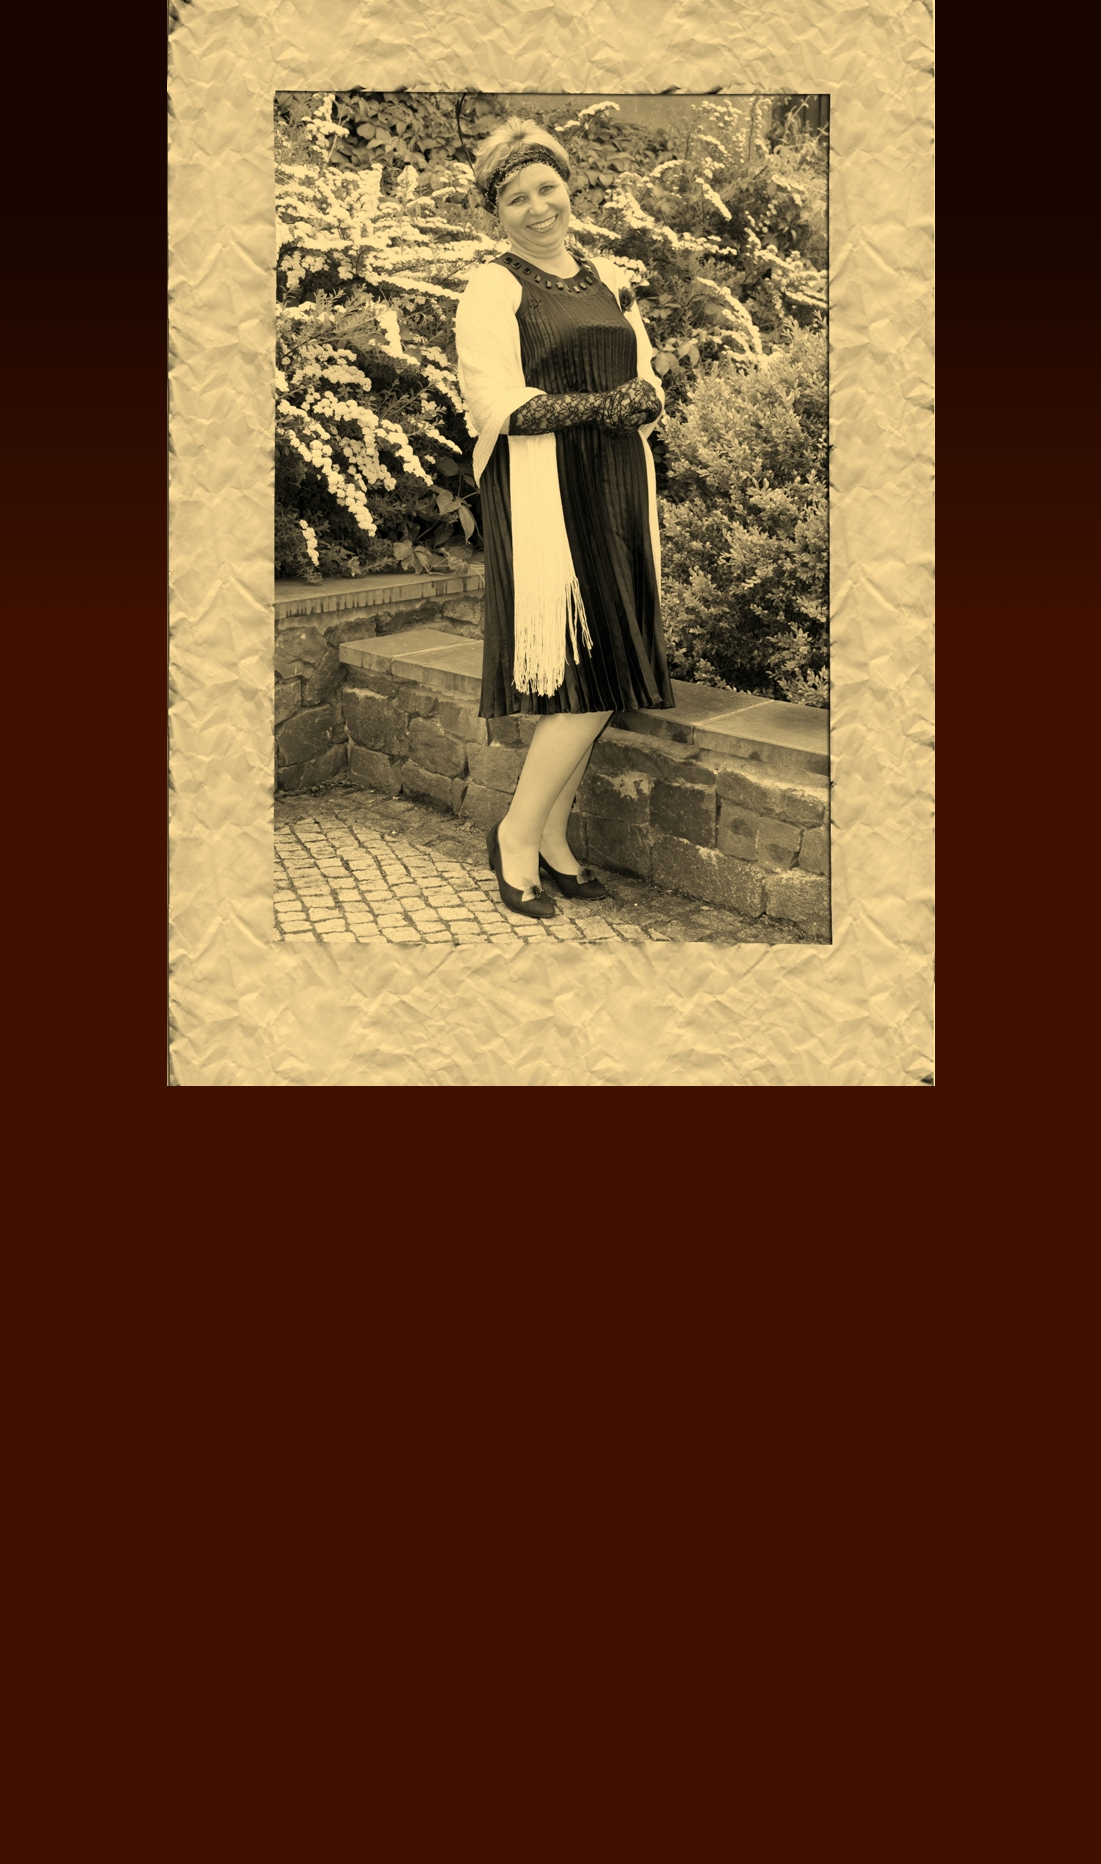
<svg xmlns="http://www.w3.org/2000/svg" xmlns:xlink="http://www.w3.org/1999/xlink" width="1101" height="1864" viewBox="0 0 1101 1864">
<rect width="100%" height="100%" fill="#401101"/>
<image xlink:href="image0.png" x="0" y="0" width="1101" height="608"/>
<image xlink:href="image1.png" x="167" y="0" width="768" height="1086"/>
</svg>
